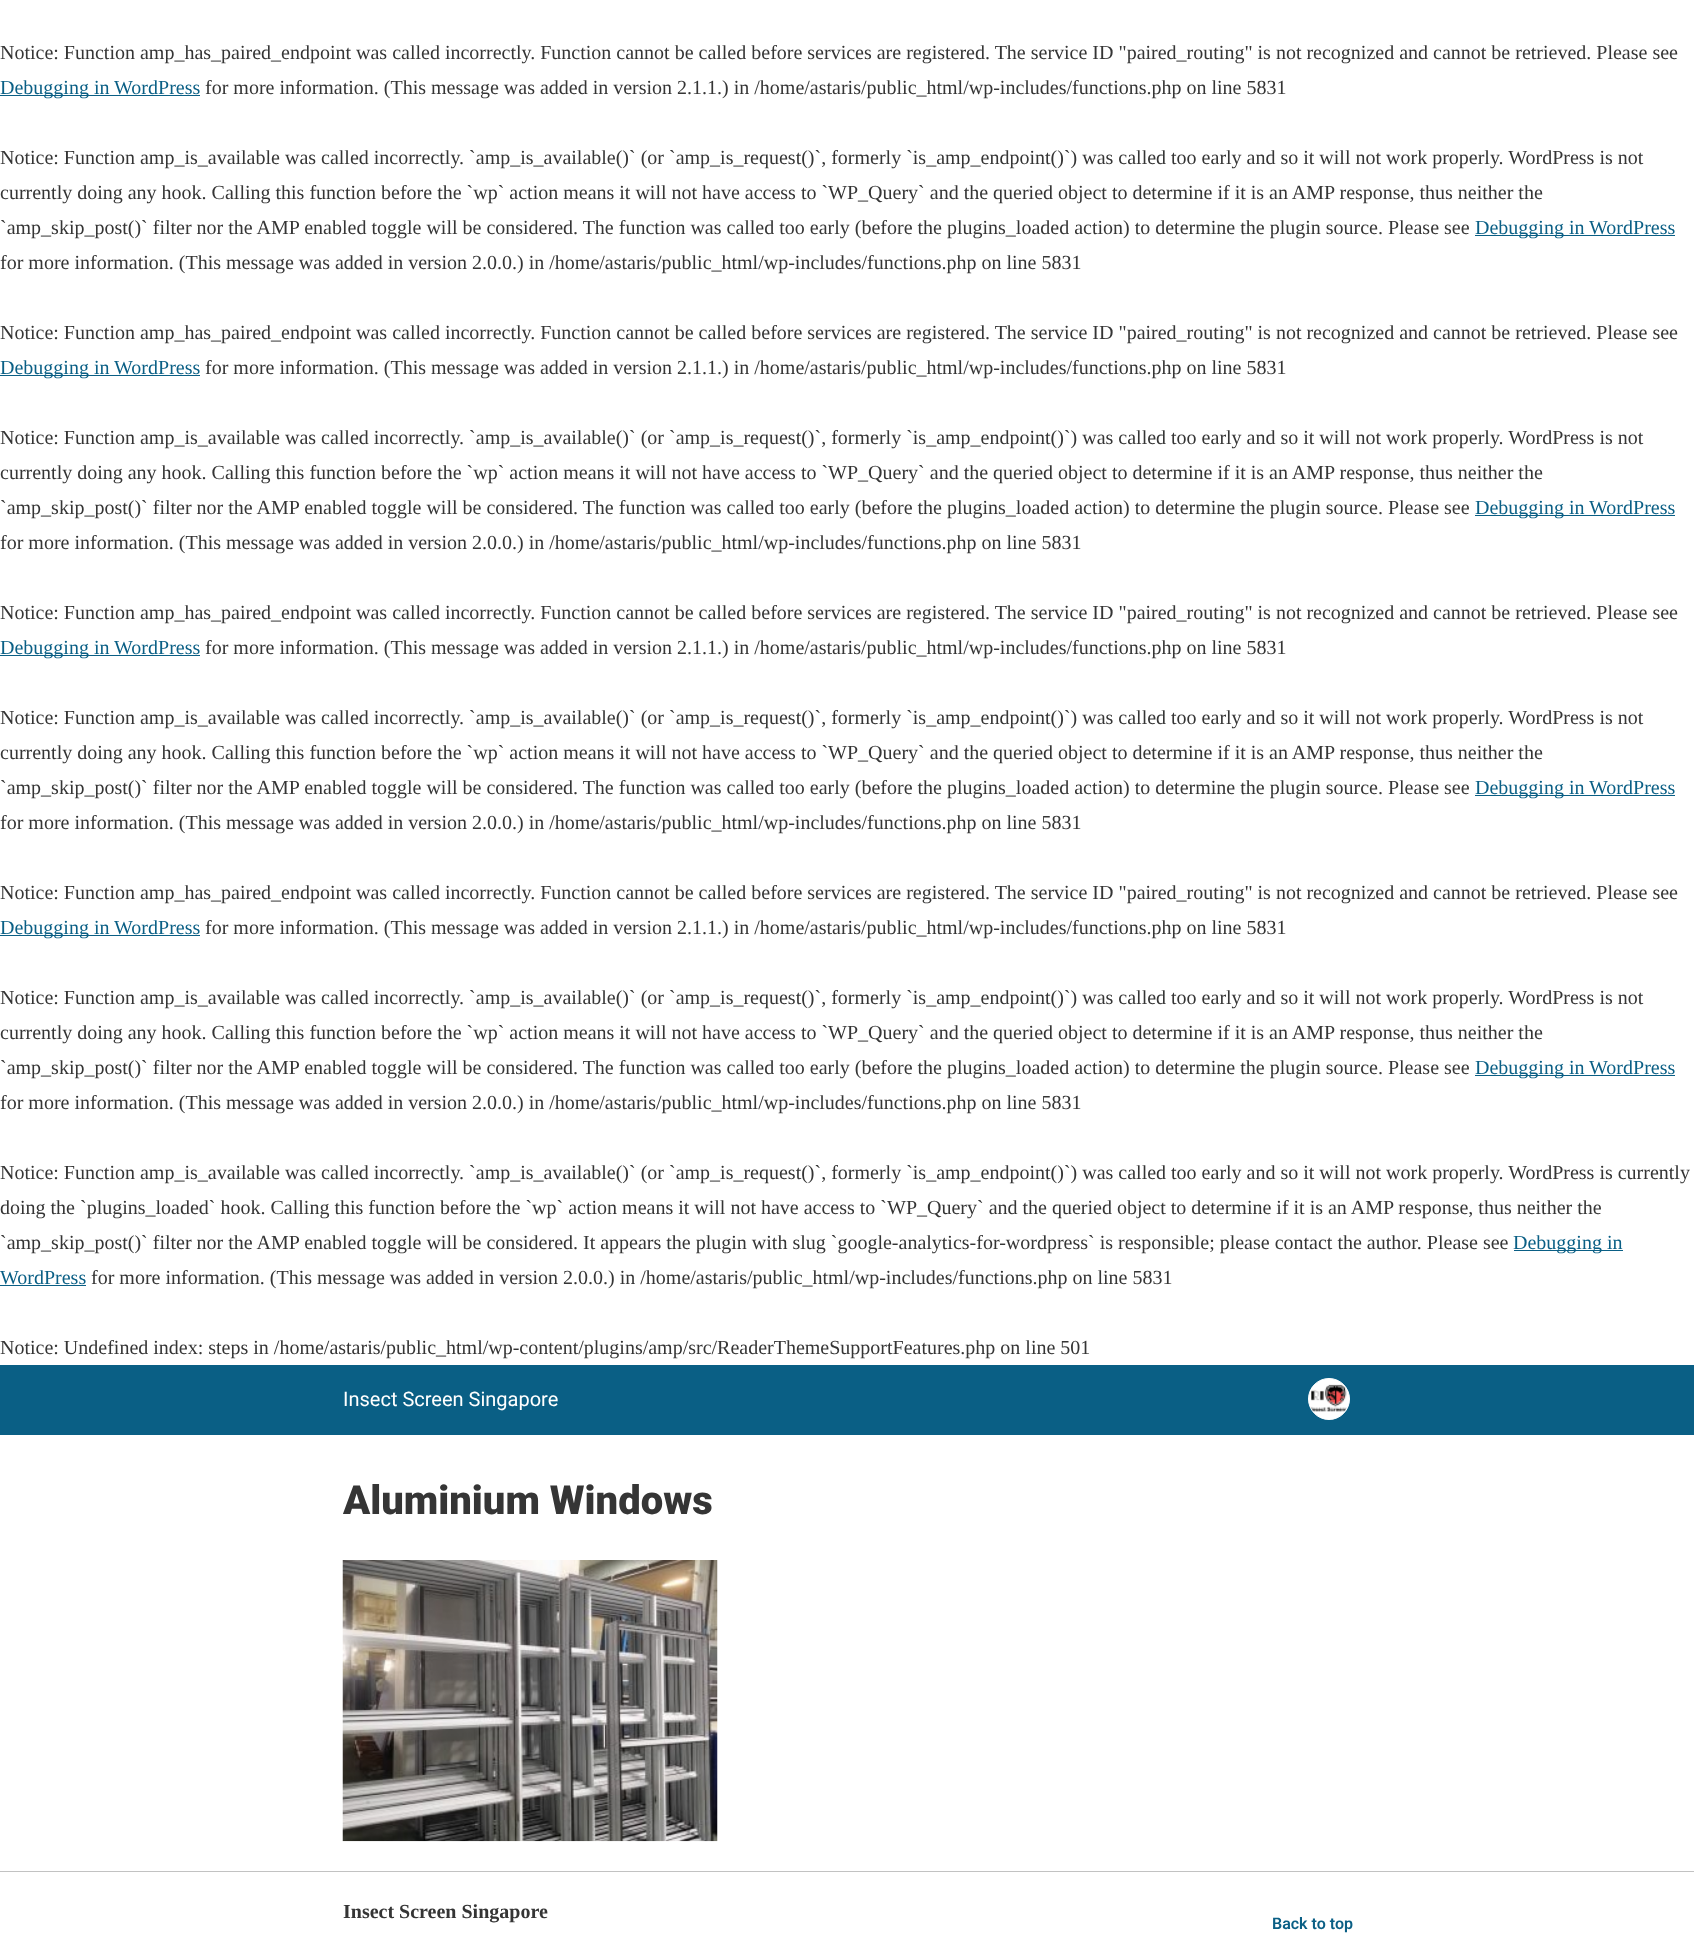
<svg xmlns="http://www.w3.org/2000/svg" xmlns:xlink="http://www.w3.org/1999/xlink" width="1694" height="1939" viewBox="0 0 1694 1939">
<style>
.cls-1{font:20px Liberation Serif;fill:#353535}
.cls-2{font:20px Liberation Serif;fill:#0a5f85}
.cls-3{font:20px Roboto;fill:#ffffff}
.cls-4{font:900 40px Roboto;fill:#353535}
.cls-5{font:bold 20px Liberation Serif;fill:#353535}
.cls-6{font:600 16px Roboto;fill:#0a5f85}
</style>
<rect width="100%" height="100%" fill="#ffffff"/>
<rect fill="#0a5f85" x="0" y="95" width="200" height="1"/>
<rect fill="#0a5f85" x="1475" y="235" width="200" height="1"/>
<rect fill="#0a5f85" x="0" y="375" width="200" height="1"/>
<rect fill="#0a5f85" x="1475" y="515" width="200" height="1"/>
<rect fill="#0a5f85" x="0" y="655" width="200" height="1"/>
<rect fill="#0a5f85" x="1475" y="795" width="200" height="1"/>
<rect fill="#0a5f85" x="0" y="935" width="200" height="1"/>
<rect fill="#0a5f85" x="1475" y="1075" width="200" height="1"/>
<rect fill="#0a5f85" x="1514" y="1250" width="109" height="1"/>
<rect fill="#0a5f85" x="0" y="1285" width="86" height="1"/>
<rect fill="#0a5f85" x="0" y="1365" width="1694" height="70"/>
<circle fill="#ffffff" stroke="#ffffff" cx="1329" cy="1399" r="20.5"/>
<image xlink:href="image0.png" x="1310" y="1384" width="37" height="28"/>
<image xlink:href="image1.png" x="342" y="1560" width="376" height="282"/>
<rect fill="#c2c2c2" x="0" y="1871" width="1694" height="1"/>
<text class="cls-1" x="0" y="59">Notice: Function amp_has_paired_endpoint was called incorrectly. Function cannot be called before services are registered. The service ID "paired_routing" is not recognized and cannot be retrieved. Please see</text>
<text class="cls-2" x="0" y="94">Debugging in WordPress</text>
<text class="cls-1" x="205" y="94">for more information. (This message was added in version 2.1.1.) in /home/astaris/public_html/wp-includes/functions.php on line 5831</text>
<text class="cls-1"><tspan x="0" y="164">Notice: Function amp_is_available was called incorrectly. `amp_is_available()` (or `amp_is_request()`, formerly `is_amp_endpoint()`) was called too early and so it will not work properly. WordPress is not</tspan><tspan x="0" y="199">currently doing any hook. Calling this function before the `wp` action means it will not have access to `WP_Query` and the queried object to determine if it is an AMP response, thus neither the</tspan><tspan x="0" y="234">`amp_skip_post()` filter nor the AMP enabled toggle will be considered. The function was called too early (before the plugins_loaded action) to determine the plugin source. Please see</tspan></text>
<text class="cls-2" x="1475" y="234">Debugging in WordPress</text>
<text class="cls-1" x="0" y="269">for more information. (This message was added in version 2.0.0.) in /home/astaris/public_html/wp-includes/functions.php on line 5831</text>
<text class="cls-1" x="0" y="339">Notice: Function amp_has_paired_endpoint was called incorrectly. Function cannot be called before services are registered. The service ID "paired_routing" is not recognized and cannot be retrieved. Please see</text>
<text class="cls-2" x="0" y="374">Debugging in WordPress</text>
<text class="cls-1" x="205" y="374">for more information. (This message was added in version 2.1.1.) in /home/astaris/public_html/wp-includes/functions.php on line 5831</text>
<text class="cls-1"><tspan x="0" y="444">Notice: Function amp_is_available was called incorrectly. `amp_is_available()` (or `amp_is_request()`, formerly `is_amp_endpoint()`) was called too early and so it will not work properly. WordPress is not</tspan><tspan x="0" y="479">currently doing any hook. Calling this function before the `wp` action means it will not have access to `WP_Query` and the queried object to determine if it is an AMP response, thus neither the</tspan><tspan x="0" y="514">`amp_skip_post()` filter nor the AMP enabled toggle will be considered. The function was called too early (before the plugins_loaded action) to determine the plugin source. Please see</tspan></text>
<text class="cls-2" x="1475" y="514">Debugging in WordPress</text>
<text class="cls-1" x="0" y="549">for more information. (This message was added in version 2.0.0.) in /home/astaris/public_html/wp-includes/functions.php on line 5831</text>
<text class="cls-1" x="0" y="619">Notice: Function amp_has_paired_endpoint was called incorrectly. Function cannot be called before services are registered. The service ID "paired_routing" is not recognized and cannot be retrieved. Please see</text>
<text class="cls-2" x="0" y="654">Debugging in WordPress</text>
<text class="cls-1" x="205" y="654">for more information. (This message was added in version 2.1.1.) in /home/astaris/public_html/wp-includes/functions.php on line 5831</text>
<text class="cls-1"><tspan x="0" y="724">Notice: Function amp_is_available was called incorrectly. `amp_is_available()` (or `amp_is_request()`, formerly `is_amp_endpoint()`) was called too early and so it will not work properly. WordPress is not</tspan><tspan x="0" y="759">currently doing any hook. Calling this function before the `wp` action means it will not have access to `WP_Query` and the queried object to determine if it is an AMP response, thus neither the</tspan><tspan x="0" y="794">`amp_skip_post()` filter nor the AMP enabled toggle will be considered. The function was called too early (before the plugins_loaded action) to determine the plugin source. Please see</tspan></text>
<text class="cls-2" x="1475" y="794">Debugging in WordPress</text>
<text class="cls-1" x="0" y="829">for more information. (This message was added in version 2.0.0.) in /home/astaris/public_html/wp-includes/functions.php on line 5831</text>
<text class="cls-1" x="0" y="899">Notice: Function amp_has_paired_endpoint was called incorrectly. Function cannot be called before services are registered. The service ID "paired_routing" is not recognized and cannot be retrieved. Please see</text>
<text class="cls-2" x="0" y="934">Debugging in WordPress</text>
<text class="cls-1" x="205" y="934">for more information. (This message was added in version 2.1.1.) in /home/astaris/public_html/wp-includes/functions.php on line 5831</text>
<text class="cls-1"><tspan x="0" y="1004">Notice: Function amp_is_available was called incorrectly. `amp_is_available()` (or `amp_is_request()`, formerly `is_amp_endpoint()`) was called too early and so it will not work properly. WordPress is not</tspan><tspan x="0" y="1039">currently doing any hook. Calling this function before the `wp` action means it will not have access to `WP_Query` and the queried object to determine if it is an AMP response, thus neither the</tspan><tspan x="0" y="1074">`amp_skip_post()` filter nor the AMP enabled toggle will be considered. The function was called too early (before the plugins_loaded action) to determine the plugin source. Please see</tspan></text>
<text class="cls-2" x="1475" y="1074">Debugging in WordPress</text>
<text class="cls-1" x="0" y="1109">for more information. (This message was added in version 2.0.0.) in /home/astaris/public_html/wp-includes/functions.php on line 5831</text>
<text class="cls-1"><tspan x="0" y="1179">Notice: Function amp_is_available was called incorrectly. `amp_is_available()` (or `amp_is_request()`, formerly `is_amp_endpoint()`) was called too early and so it will not work properly. WordPress is currently</tspan><tspan x="0" y="1214">doing the `plugins_loaded` hook. Calling this function before the `wp` action means it will not have access to `WP_Query` and the queried object to determine if it is an AMP response, thus neither the</tspan><tspan x="0" y="1249">`amp_skip_post()` filter nor the AMP enabled toggle will be considered. It appears the plugin with slug `google-analytics-for-wordpress` is responsible; please contact the author. Please see</tspan></text>
<text class="cls-2" x="1513" y="1249">Debugging in</text>
<text class="cls-2" x="0" y="1284">WordPress</text>
<text class="cls-1" x="91" y="1284">for more information. (This message was added in version 2.0.0.) in /home/astaris/public_html/wp-includes/functions.php on line 5831</text>
<text class="cls-1" x="0" y="1354">Notice: Undefined index: steps in /home/astaris/public_html/wp-content/plugins/amp/src/ReaderThemeSupportFeatures.php on line 501</text>
<text class="cls-3" x="343" y="1406">Insect Screen Singapore</text>
<text class="cls-4" x="343" y="1514">Aluminium Windows</text>
<text class="cls-5" x="343" y="1918">Insect Screen Singapore</text>
<text class="cls-6" x="1272" y="1929">Back to top</text>
</svg>
